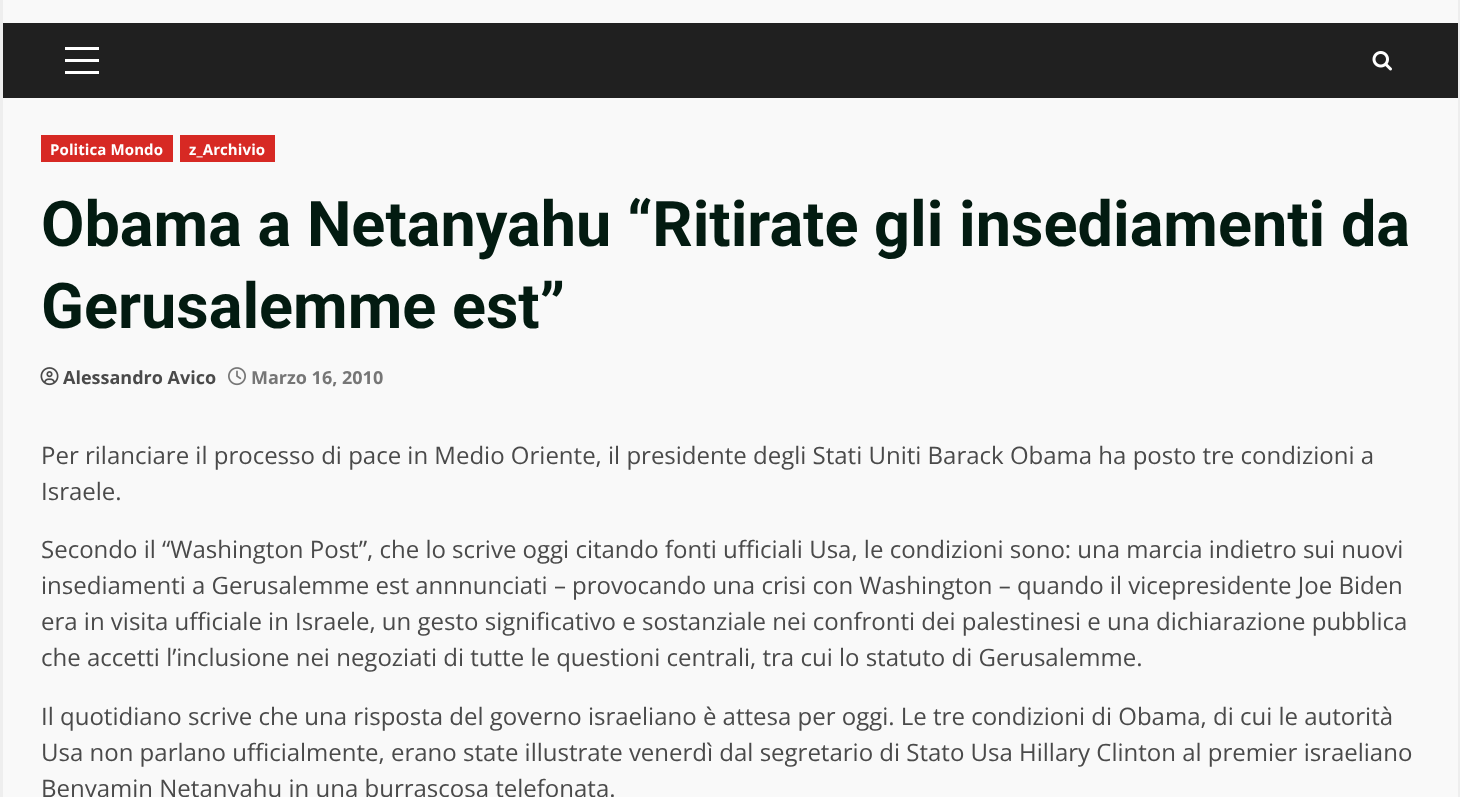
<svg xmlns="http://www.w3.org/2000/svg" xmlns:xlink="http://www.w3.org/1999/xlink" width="1460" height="797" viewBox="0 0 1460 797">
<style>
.cls-1{font:bold 15px Open Sans;letter-spacing:0.1px;fill:#ffffff}
.cls-2{font:bold 63px Roboto;fill:#031b11}
.cls-3{font:bold 18px Open Sans;fill:#4a4a4a}
.cls-4{font:bold 18px Open Sans;fill:#767676}
.cls-5{font:24px Open Sans;fill:#4a4a4a}
</style>
<rect width="100%" height="100%" fill="#eeeeee"/>
<rect fill="#f9f9f9" x="3" y="0" width="1455" height="797"/>
<rect fill="#202020" x="3" y="23" width="1455" height="75"/>
<rect fill="#ffffff" x="65" y="59" width="34" height="3"/>
<rect fill="#ffffff" x="65" y="47" width="34" height="3"/>
<rect fill="#ffffff" x="65" y="71" width="34" height="3"/>
<image xlink:href="image0.png" x="1372" y="51" width="20" height="20"/>
<rect fill="#d72924" x="41" y="135" width="132" height="27"/>
<rect fill="#d72924" x="180" y="135" width="95" height="27"/>
<image xlink:href="image1.png" x="40" y="367" width="19" height="19"/>
<image xlink:href="image2.png" x="228" y="367" width="18" height="19"/>
<text class="cls-1" x="50" y="155">Politica Mondo</text>
<text class="cls-1" x="189" y="155">z_Archivio</text>
<text class="cls-2"><tspan x="41" y="246">Obama a Netanyahu “Ritirate gli insediamenti da</tspan><tspan x="41" y="328">Gerusalemme est”</tspan></text>
<text class="cls-3" x="63" y="384">Alessandro Avico</text>
<text class="cls-4" x="251" y="384">Marzo 16, 2010</text>
<text class="cls-5"><tspan x="41" y="464">Per rilanciare il processo di pace in Medio Oriente, il presidente degli Stati Uniti Barack Obama ha posto tre condizioni a</tspan><tspan x="41" y="500">Israele.</tspan></text>
<text class="cls-5"><tspan x="41" y="558">Secondo il “Washington Post”, che lo scrive oggi citando fonti ufficiali Usa, le condizioni sono: una marcia indietro sui nuovi</tspan><tspan x="41" y="594">insediamenti a Gerusalemme est annnunciati – provocando una crisi con Washington – quando il vicepresidente Joe Biden</tspan><tspan x="41" y="630">era in visita ufficiale in Israele, un gesto significativo e sostanziale nei confronti dei palestinesi e una dichiarazione pubblica</tspan><tspan x="41" y="666">che accetti l’inclusione nei negoziati di tutte le questioni centrali, tra cui lo statuto di Gerusalemme.</tspan></text>
<text class="cls-5"><tspan x="41" y="725">Il quotidiano scrive che una risposta del governo israeliano è attesa per oggi. Le tre condizioni di Obama, di cui le autorità</tspan><tspan x="41" y="761">Usa non parlano ufficialmente, erano state illustrate venerdì dal segretario di Stato Usa Hillary Clinton al premier israeliano</tspan><tspan x="41" y="797">Benyamin Netanyahu in una burrascosa telefonata.</tspan></text>
</svg>
